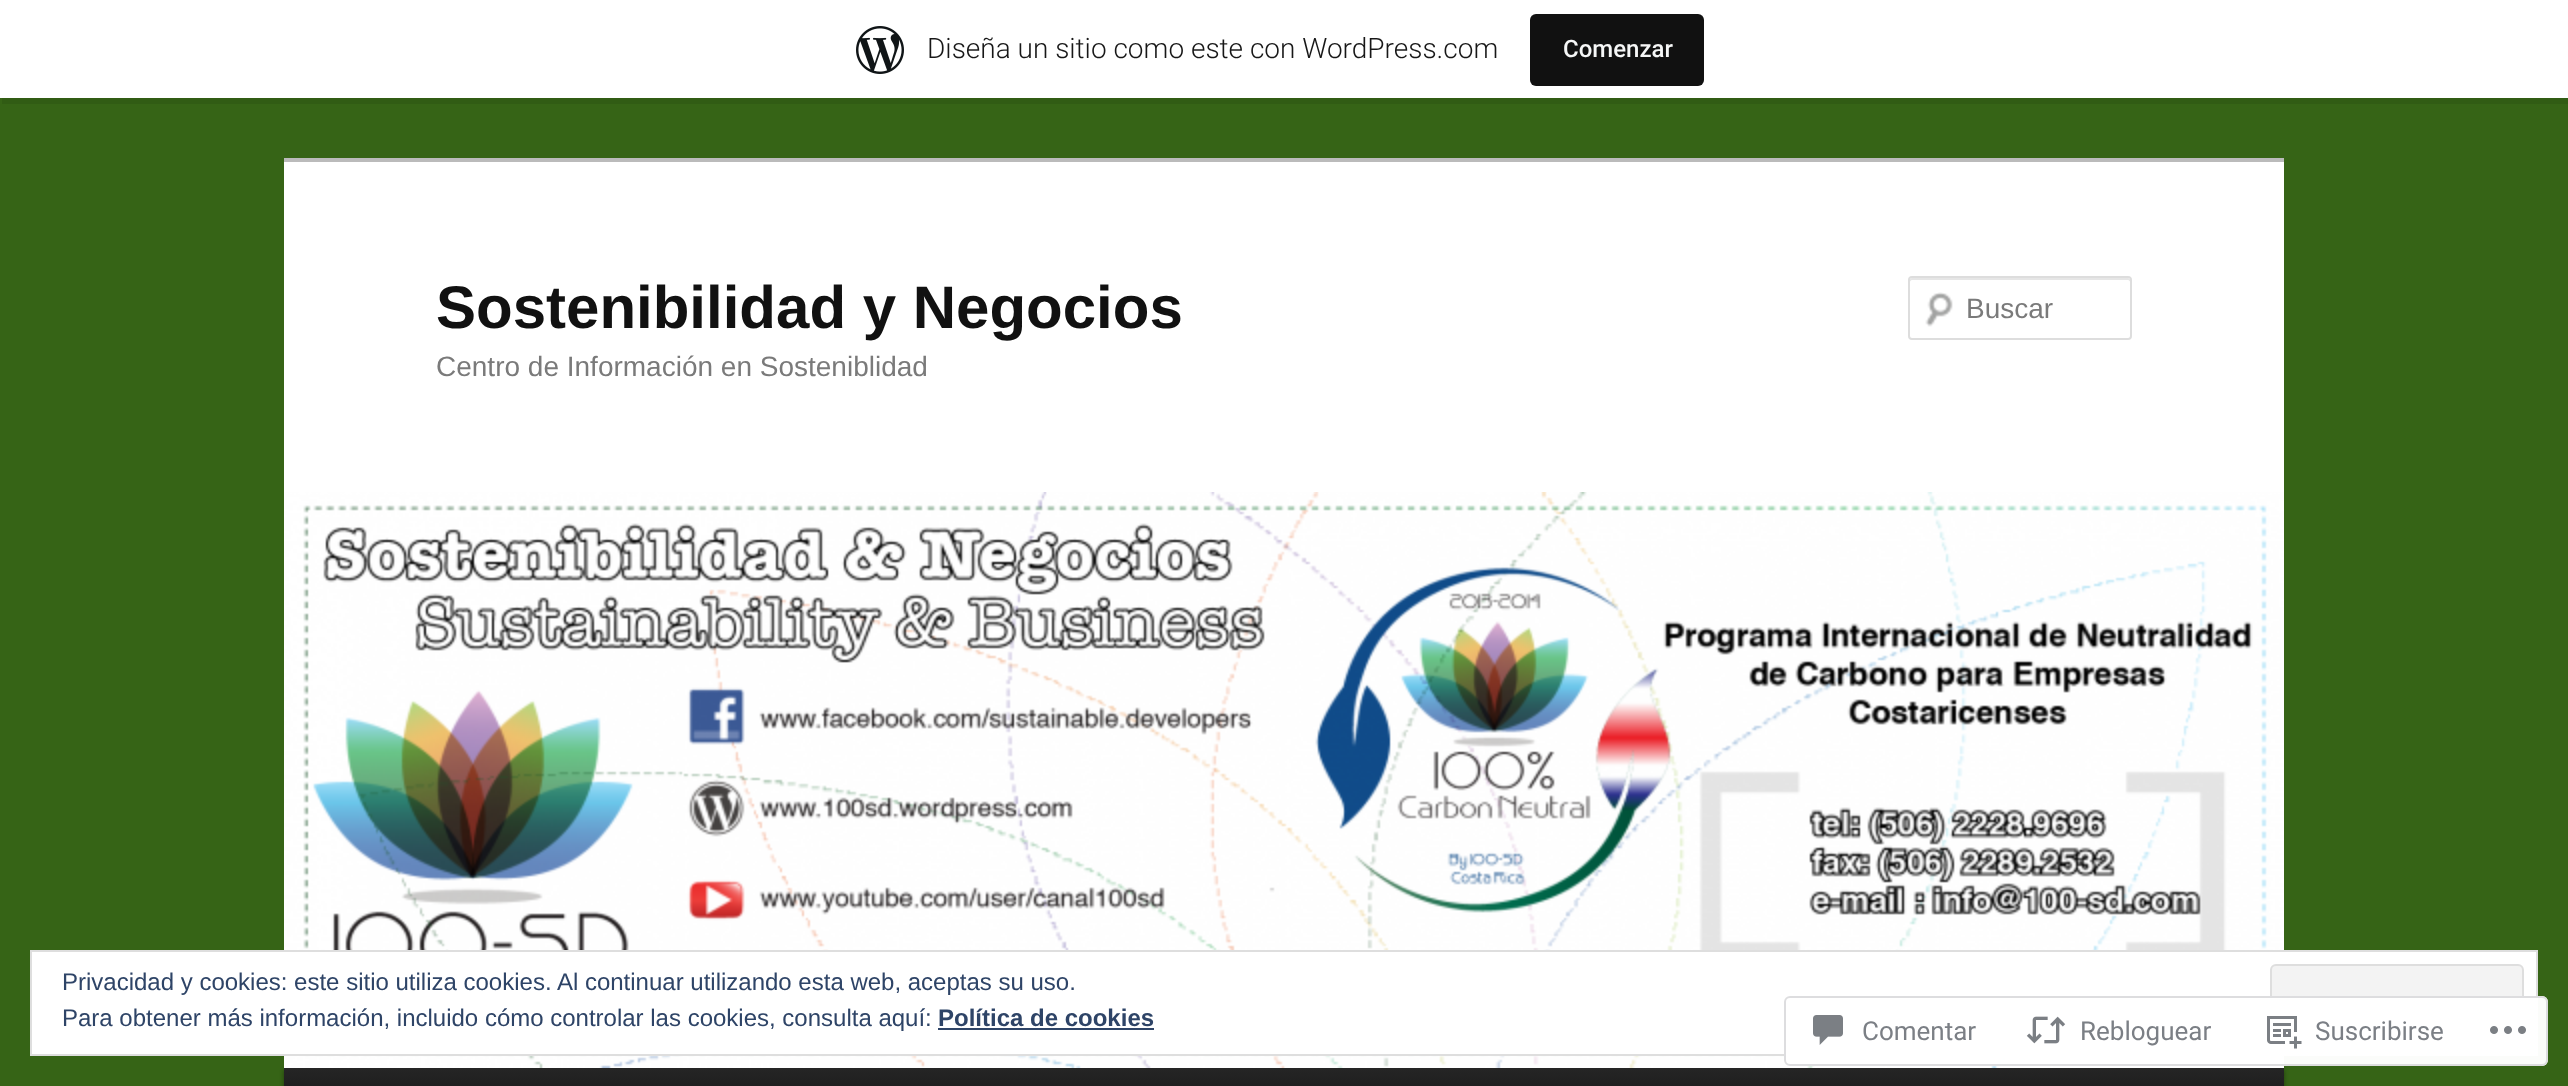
<svg xmlns="http://www.w3.org/2000/svg" xmlns:xlink="http://www.w3.org/1999/xlink" width="2568" height="1086" viewBox="0 0 2568 1086">
<style>
.cls-1{font:300 28px Roboto;fill:#171717}
.cls-2{font:500 24px Roboto;fill:#f6f7f7}
.cls-3{font:bold 60px Liberation Sans;fill:#111111}
.cls-4{font:28px Liberation Sans;fill:#7a7a7a}
.cls-5{font:24px Liberation Sans;fill:#2e4467}
.cls-6{font:bold 24px Liberation Sans;fill:#2e4467}
.cls-7{font:26px Roboto;fill:#7b7f85}
</style>
<defs>
<linearGradient id="g1" gradientUnits="userSpaceOnUse" x1="1284" y1="1068" x2="1284" y2="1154"><stop offset="0" stop-color="#252525"/><stop offset="1" stop-color="#0a0a0a"/></linearGradient>
</defs>
<rect width="100%" height="100%" fill="#366416"/>
<path fill="#000000" fill-opacity="0.08" d="M2 98V104H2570V6H2568V98Z"/>
<rect fill="#ffffff" x="0" y="0" width="2568" height="98"/>
<image xlink:href="image0.png" x="856" y="26" width="48" height="48"/>
<rect fill="#111111" x="1530" y="14" width="174" height="72" rx="6"/>
<rect fill="#ffffff" x="284" y="162" width="2000" height="333"/>
<rect fill="#bbbbbb" x="284" y="158" width="2000" height="4"/>
<image xlink:href="image1.png" x="1925" y="292" width="28" height="35"/>
<path fill="#e6e6e6" d="M1912 280H2128C2129 280 2130 281 2130 282V280C2130 279 2129 278 2128 278H1912C1911 278 1910 279 1910 280V282C1910 281 1911 280 1912 280Z"/>
<rect fill="none" stroke="#dddddd" stroke-width="2" x="1909" y="277" width="222" height="62" rx="3"/>
<rect fill="#000000" fill-opacity="0.4" filter="blur(2px)" x="284" y="1070" width="2000" height="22"/>
<image xlink:href="image2.png" x="284" y="492" width="2000" height="576"/>
<rect fill="url(#g1)" x="284" y="1068" width="2000" height="18"/>
<rect fill="#ffffff" stroke="#dedede" stroke-width="2" x="31" y="951" width="2506" height="104"/>
<rect fill="#f3f3f3" stroke="#dedede" stroke-width="2" x="2271" y="965" width="252" height="76" rx="5"/>
<rect fill="#2e4467" x="938" y="1028" width="216" height="2"/>
<rect fill="#ffffff" fill-opacity="0.98" x="1784" y="996" width="764" height="70" rx="6"/>
<rect fill="none" stroke="#dcdcde" stroke-opacity="0.98" stroke-width="2" x="1785" y="997" width="762" height="68" rx="5"/>
<image xlink:href="image3.png" x="1813" y="1015" width="30" height="30"/>
<image xlink:href="image4.png" x="2026" y="1016" width="40" height="28"/>
<image xlink:href="image5.png" x="2267" y="1016" width="35" height="33"/>
<image xlink:href="image6.png" x="2490" y="1026" width="36" height="8"/>
<text class="cls-1" x="927" y="58">Diseña un sitio como este con WordPress.com</text>
<text class="cls-2" x="1563" y="57">Comenzar</text>
<text class="cls-3" x="436" y="328">Sostenibilidad y Negocios</text>
<text class="cls-4" x="436" y="376">Centro de Información en Sosteniblidad</text>
<text class="cls-4" x="1966" y="318">Buscar</text>
<text class="cls-5"><tspan x="62" y="990">Privacidad y cookies: este sitio utiliza cookies. Al continuar utilizando esta web, aceptas su uso.</tspan><tspan x="62" y="1026">Para obtener más información, incluido cómo controlar las cookies, consulta aquí:</tspan></text>
<text class="cls-6" x="938" y="1026">Política de cookies</text>
<text class="cls-7" x="1862" y="1040">Comentar</text>
<text class="cls-7" x="2080" y="1040">Rebloguear</text>
<text class="cls-7" x="2315" y="1040">Suscribirse</text>
</svg>
